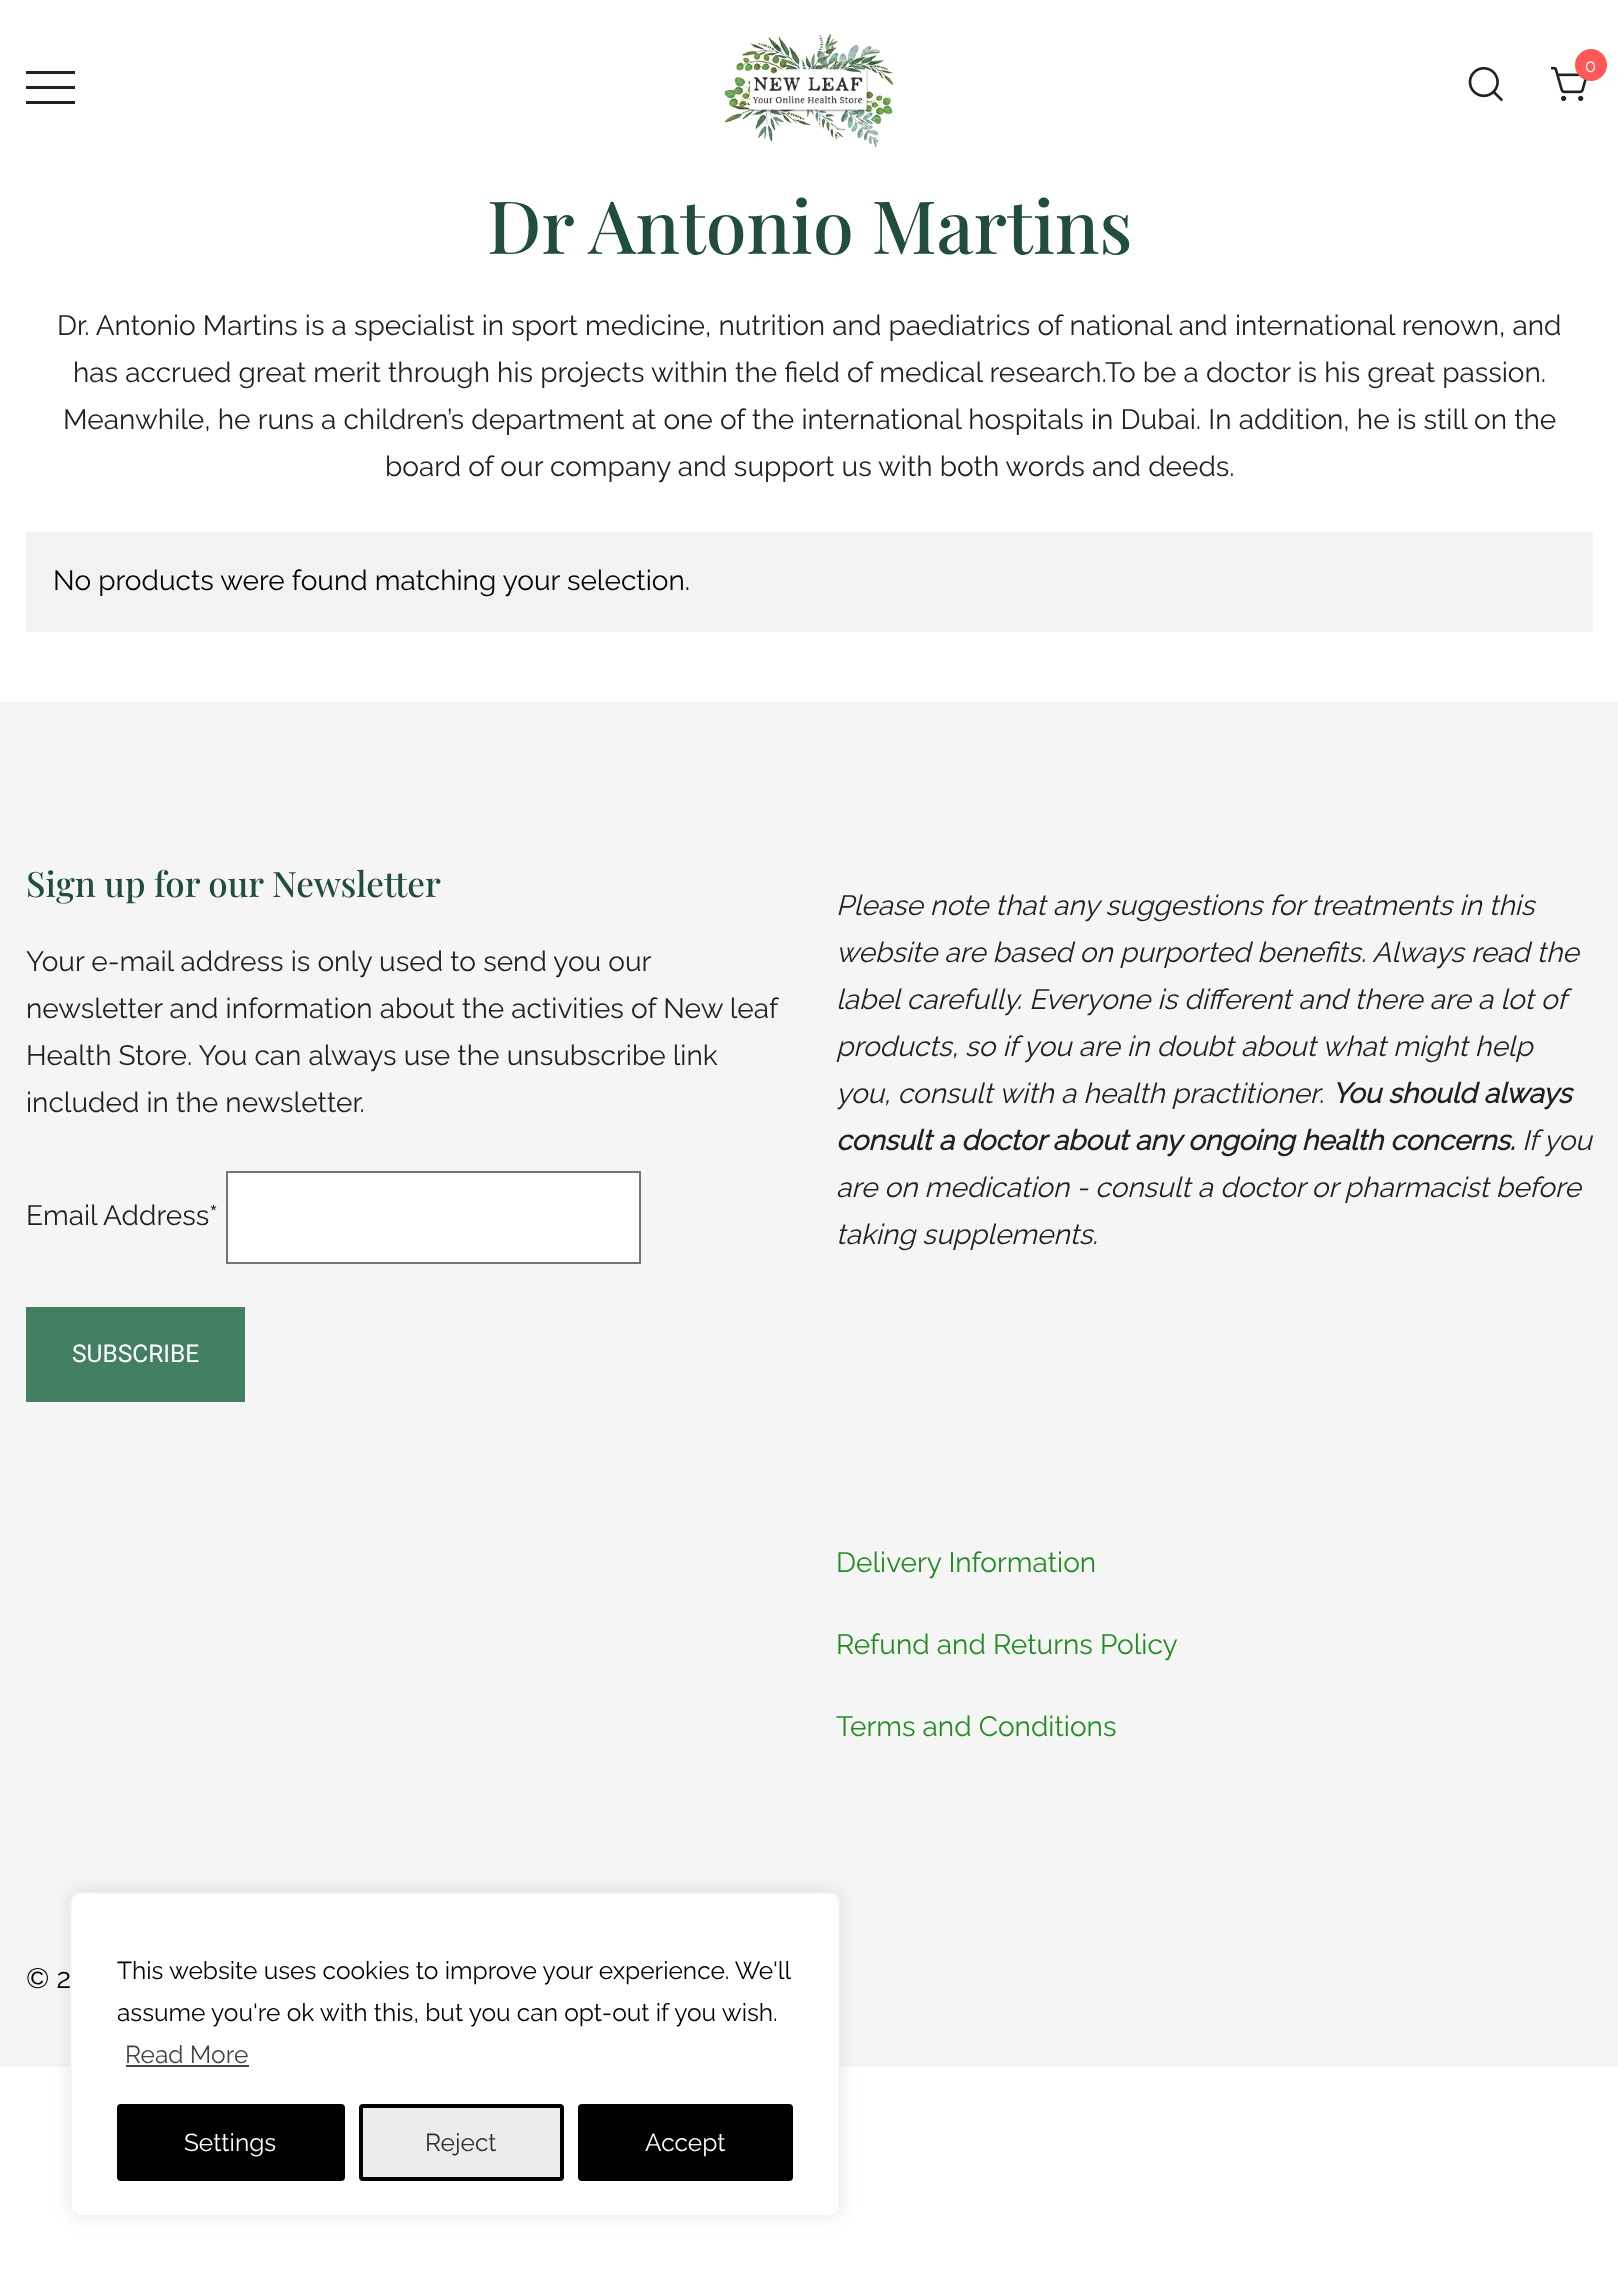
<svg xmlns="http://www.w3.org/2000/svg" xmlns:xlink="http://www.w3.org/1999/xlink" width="1618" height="2286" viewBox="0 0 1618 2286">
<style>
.cls-1{font:100 18px Raleway;fill:#ffffff}
.cls-2{font:500 73.5px Playfair Display;fill:#214e3a}
.cls-3{font:100 28px Raleway;fill:#212121}
.cls-4{font:100 28px Raleway;fill:#000000}
.cls-5{font:500 35px Playfair Display;fill:#214e3a}
.cls-6{font:24.5px Roboto;fill:#ffffff}
.cls-7{font:italic 100 28px Raleway;fill:#212121}
.cls-8{font:italic bold 28px Raleway;fill:#212121}
.cls-9{font:100 28px Raleway;fill:#228b22}
.cls-10{font:100 24.5px Raleway;fill:#000000}
.cls-11{font:100 24.5px Raleway;fill:#444444}
.cls-12{font:100 24.5px Raleway;fill:#ffffff}
.cls-13{font:100 24.5px Raleway;fill:#312f2f}
</style>
<rect width="100%" height="100%" fill="#ffffff"/>
<image xlink:href="image0.png" x="724" y="34" width="170" height="114"/>
<image xlink:href="image1.png" x="1468" y="66" width="35" height="35"/>
<image xlink:href="image2.png" x="1551" y="66" width="36" height="35"/>
<circle fill="#ff5858" stroke="#ff5858" stroke-width="2" cx="1591" cy="65" r="15"/>
<rect fill="#212121" x="26" y="71" width="49" height="3"/>
<rect fill="#212121" x="26" y="86" width="49" height="3"/>
<rect fill="#212121" x="26" y="101" width="49" height="3"/>
<rect fill="#f2f2f2" x="26" y="532" width="1567" height="100"/>
<rect fill="#f5f5f5" x="0" y="702" width="1618" height="1365"/>
<rect fill="#ffffff" stroke="#757575" stroke-width="2" x="227" y="1172" width="413" height="91"/>
<rect fill="#438061" x="26" y="1307" width="219" height="95"/>
<rect fill="#acabab" fill-opacity="0.3" filter="blur(9px)" x="70" y="1890" width="770" height="326" rx="11"/>
<rect fill="#ffffff" stroke="#f4f4f4" stroke-width="2" x="71" y="1893" width="768" height="323" rx="10"/>
<rect fill="#444444" x="126" y="2065" width="123" height="2"/>
<rect fill="#000000" stroke="#000000" stroke-width="4" x="119" y="2106" width="224" height="73" rx="2"/>
<rect fill="#edecec" stroke="#000000" stroke-width="4" x="361" y="2106" width="201" height="73" rx="2"/>
<rect fill="#000000" stroke="#000000" stroke-width="4" x="580" y="2106" width="211" height="73" rx="2"/>
<text class="cls-1" x="1585" y="72">0</text>
<text class="cls-2" x="487" y="254">Dr Antonio Martins</text>
<text class="cls-3" x="57" y="335">Dr. Antonio Martins is a specialist in sport medicine, nutrition and paediatrics of national and international renown, and</text>
<text class="cls-3" x="73" y="382">has accrued great merit through his projects within the field of medical research.To be a doctor is his great passion.</text>
<text class="cls-3" x="63" y="429">Meanwhile, he runs a children’s department at one of the international hospitals in Dubai. In addition, he is still on the</text>
<text class="cls-3" x="385" y="476">board of our company and support us with both words and deeds.</text>
<text class="cls-4" x="53" y="590">No products were found matching your selection.</text>
<text class="cls-5" x="26" y="897">Sign up for our Newsletter</text>
<text class="cls-3"><tspan x="26" y="971">Your e-mail address is only used to send you our</tspan><tspan x="26" y="1018">newsletter and information about the activities of New leaf</tspan><tspan x="26" y="1065">Health Store. You can always use the unsubscribe link</tspan><tspan x="26" y="1112">included in the newsletter.</tspan></text>
<text class="cls-3" x="26" y="1225">Email Address*</text>
<text class="cls-6" x="72" y="1362">SUBSCRIBE</text>
<text class="cls-7"><tspan x="836" y="915">Please note that any suggestions for treatments in this</tspan><tspan x="836" y="962">website are based on purported benefits. Always read the</tspan><tspan x="836" y="1009">label carefully. Everyone is different and there are a lot of</tspan><tspan x="836" y="1056">products, so if you are in doubt about what might help</tspan><tspan x="836" y="1103">you, consult with a health practitioner</tspan></text>
<text class="cls-8" x="1332" y="1103">You should always</text>
<text class="cls-3" x="1319" y="1103">.</text>
<text class="cls-8" x="836" y="1150">consult a doctor about any ongoing health concerns.</text>
<text class="cls-7" x="1522" y="1150">If you</text>
<text class="cls-7"><tspan x="836" y="1197">are on medication - consult a doctor or pharmacist before</tspan><tspan x="836" y="1244">taking supplements.</tspan></text>
<text class="cls-9" x="836" y="1572">Delivery Information</text>
<text class="cls-9" x="836" y="1654">Refund and Returns Policy</text>
<text class="cls-9" x="836" y="1736">Terms and Conditions</text>
<text class="cls-4" x="26" y="1988">© 2</text>
<text class="cls-10"><tspan x="117" y="1979">This website uses cookies to improve your experience. We'll</tspan><tspan x="117" y="2021">assume you're ok with this, but you can opt-out if you wish.</tspan></text>
<text class="cls-11" x="125" y="2063">Read More</text>
<text class="cls-12" x="184" y="2151">Settings</text>
<text class="cls-13" x="425" y="2151">Reject</text>
<text class="cls-12" x="645" y="2151">Accept</text>
</svg>
